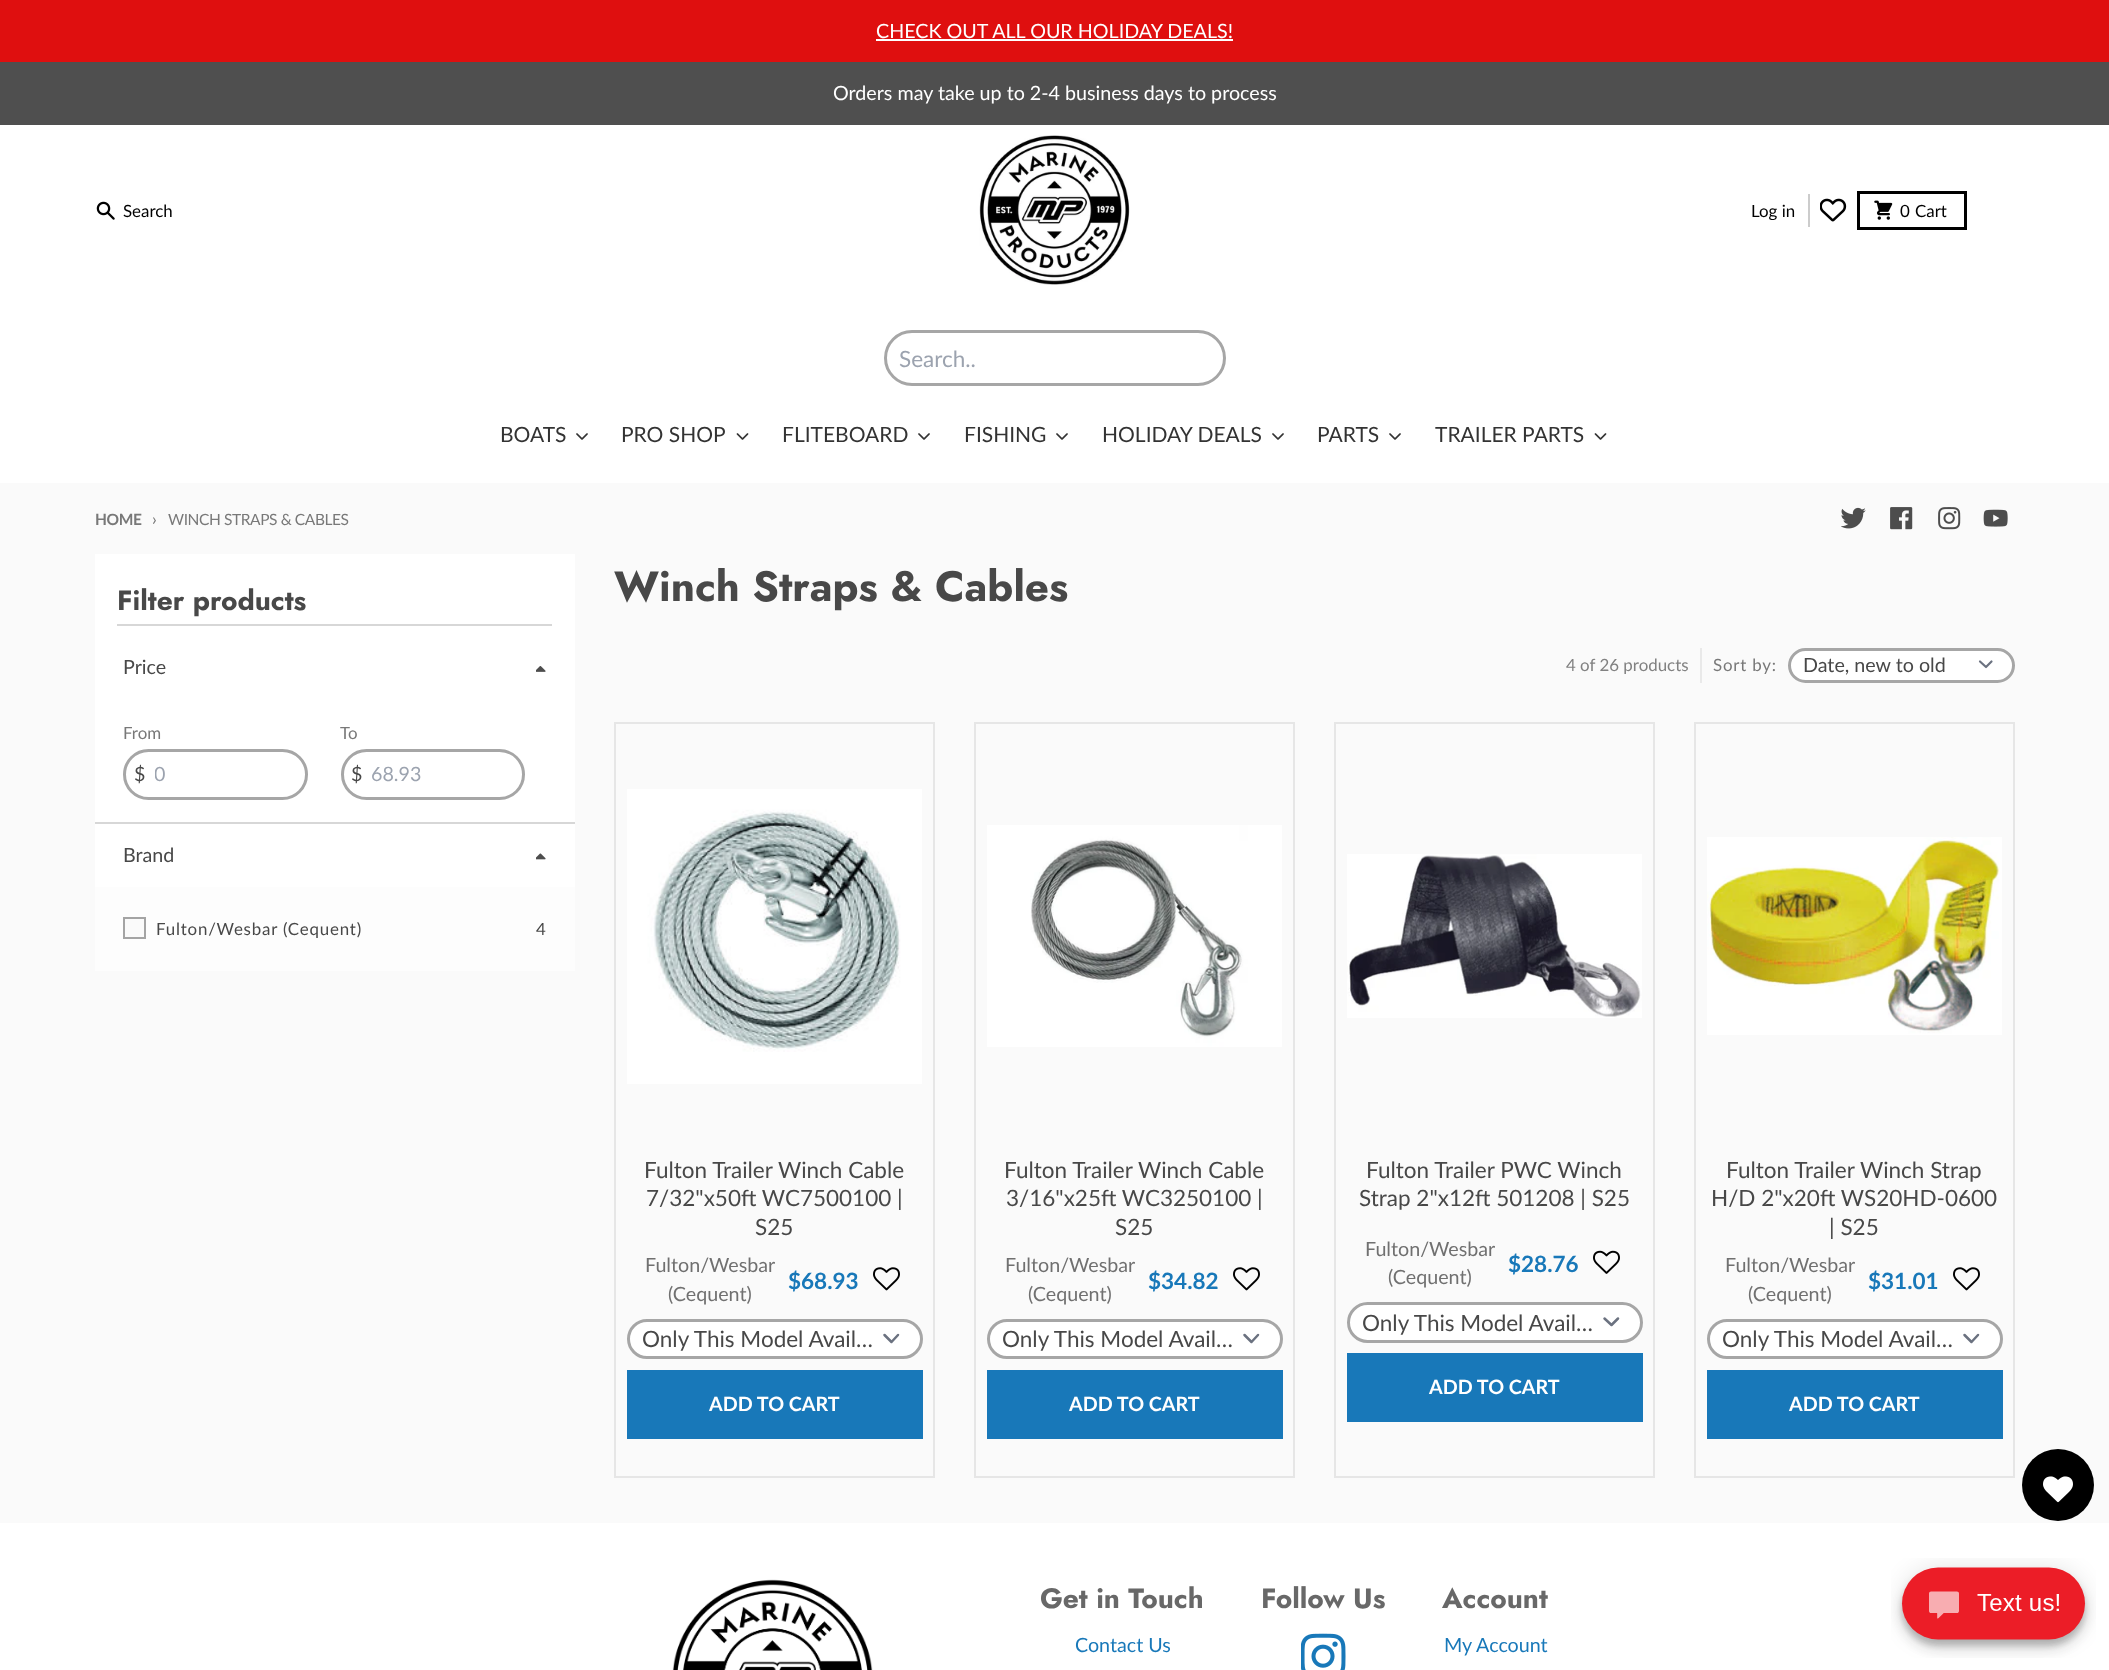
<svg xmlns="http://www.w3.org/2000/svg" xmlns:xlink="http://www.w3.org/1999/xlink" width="2109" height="1670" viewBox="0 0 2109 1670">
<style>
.cls-1{font:19.7px Lato;fill:#ffffff}
.cls-2{font:16.9px Lato;fill:#000000}
.cls-3{font:22.5px Lato;fill:#9ca3af}
.cls-4{font:21px Lato;fill:#333333}
.cls-5{font:bold 15.5px Lato;letter-spacing:-0.4px;fill:#787878}
.cls-6{font:16.9px Lato;letter-spacing:-0.4px;fill:#787878}
.cls-7{font:15.5px Lato;letter-spacing:-0.4px;fill:#787878}
.cls-8{font:bold 28px Jost;fill:#484848}
.cls-9{font:19.7px Lato;fill:#484848}
.cls-10{font:16.9px Lato;fill:#787878}
.cls-11{font:19.7px Lato;fill:#9ca3af}
.cls-12{font:16.9px Lato;letter-spacing:0.8px;fill:#484848}
.cls-13{font:bold 42.25px Jost;fill:#484848}
.cls-14{font:16.9px Lato;fill:#818181}
.cls-15{font:16.9px Lato;letter-spacing:0.8px;fill:#787878}
.cls-16{font:22.5px Lato;fill:#484848}
.cls-17{font:19.7px Lato;fill:#707070}
.cls-18{font:bold 22.5px Lato;fill:#1878b9}
.cls-19{font:bold 19.7px Lato;fill:#ffffff}
.cls-20{font:bold 28px Jost;fill:#686868}
.cls-21{font:19.7px Lato;fill:#1878b9}
</style>
<defs>
<clipPath id="clip1"><rect x="155" y="762" width="82" height="24"/></clipPath>
</defs>
<rect width="100%" height="100%" fill="#ffffff"/>
<rect fill="#df0f0f" x="0" y="0" width="2109" height="62"/>
<rect fill="#ffffff" x="876" y="39" width="357" height="2"/>
<rect fill="#4f4f4f" x="0" y="62" width="2109" height="63"/>
<image xlink:href="image0.png" x="96" y="201" width="19" height="19"/>
<image xlink:href="image1.png" x="979" y="135" width="151" height="150"/>
<rect fill="#cccccc" x="1808" y="194" width="2" height="33"/>
<image xlink:href="image2.png" x="1820" y="198" width="27" height="24"/>
<rect fill="none" stroke="#000000" stroke-width="3" x="1858.5" y="192.5" width="107" height="36"/>
<image xlink:href="image3.png" x="1874" y="200" width="19" height="20"/>
<rect fill="none" stroke="#a6a6a6" stroke-width="3" x="885.5" y="331.5" width="339" height="53" rx="26.5"/>
<image xlink:href="image4.png" x="576" y="433" width="12" height="7"/>
<image xlink:href="image5.png" x="736" y="433" width="13" height="7"/>
<image xlink:href="image4.png" x="918" y="433" width="12" height="7"/>
<image xlink:href="image4.png" x="1056" y="433" width="12" height="7"/>
<image xlink:href="image4.png" x="1272" y="433" width="12" height="7"/>
<image xlink:href="image4.png" x="1389" y="433" width="12" height="7"/>
<image xlink:href="image5.png" x="1594" y="433" width="13" height="7"/>
<rect fill="#fafafa" x="0" y="483" width="2109" height="1040"/>
<image xlink:href="image6.png" x="1841" y="507" width="25" height="22"/>
<image xlink:href="image7.png" x="1890" y="507" width="23" height="23"/>
<image xlink:href="image8.png" x="1938" y="507" width="23" height="23"/>
<image xlink:href="image9.png" x="1983" y="509" width="25" height="18"/>
<rect fill="#ffffff" x="95" y="554" width="480" height="333"/>
<rect fill="#d7d7d7" x="117" y="624" width="435" height="2"/>
<image xlink:href="image10.png" x="536" y="666" width="10" height="6"/>
<rect fill="none" stroke="#a6a6a6" stroke-width="3" x="124.5" y="750.5" width="182" height="48" rx="24"/>
<rect fill="none" stroke="#a6a6a6" stroke-width="3" x="342.5" y="750.5" width="181" height="48" rx="24"/>
<rect fill="#d7d7d7" x="95" y="822" width="480" height="2"/>
<image xlink:href="image11.png" x="536" y="853" width="10" height="7"/>
<rect fill="#fdfdfd" x="95" y="887" width="480" height="84"/>
<rect fill="#fafafa" stroke="#a4a4a4" stroke-width="2" x="124" y="918" width="21" height="20"/>
<rect fill="#e9e9e9" x="1700" y="648" width="2" height="35"/>
<rect fill="#ffffff" x="1788" y="648" width="227" height="35" rx="17.5"/>
<path fill="none" stroke="#6b7280" stroke-width="2.2" stroke-linecap="round" stroke-linejoin="round" d="M1980 661.5L1986 667L1991.5 661.5"/>
<rect fill="none" stroke="#a6a6a6" stroke-width="3" x="1789.5" y="649.5" width="224" height="32" rx="16"/>
<rect fill="none" stroke="#e6e6e6" stroke-width="2" x="615" y="723" width="319" height="754"/>
<image xlink:href="image12.png" x="627" y="789" width="295" height="295"/>
<image xlink:href="image13.png" x="873" y="1267" width="27" height="24"/>
<rect fill="#ffffff" x="627" y="1319" width="296" height="40" rx="20"/>
<path fill="none" stroke="#6b7280" stroke-width="2.5" stroke-linecap="round" stroke-linejoin="round" d="M884.5 1335L891.5 1342L898 1335"/>
<rect fill="none" stroke="#a6a6a6" stroke-width="3" x="628.5" y="1320.5" width="293" height="37" rx="18.5"/>
<rect fill="#1878b9" x="627" y="1370" width="296" height="69"/>
<rect fill="none" stroke="#e6e6e6" stroke-width="2" x="975" y="723" width="319" height="754"/>
<image xlink:href="image14.png" x="987" y="825" width="295" height="222"/>
<image xlink:href="image13.png" x="1233" y="1267" width="27" height="24"/>
<rect fill="#ffffff" x="987" y="1319" width="296" height="40" rx="20"/>
<path fill="none" stroke="#6b7280" stroke-width="2.5" stroke-linecap="round" stroke-linejoin="round" d="M1244.5 1335L1251.5 1342L1258 1335"/>
<rect fill="none" stroke="#a6a6a6" stroke-width="3" x="988.5" y="1320.5" width="293" height="37" rx="18.5"/>
<rect fill="#1878b9" x="987" y="1370" width="296" height="69"/>
<rect fill="none" stroke="#e6e6e6" stroke-width="2" x="1335" y="723" width="319" height="754"/>
<image xlink:href="image15.png" x="1347" y="854" width="295" height="164"/>
<image xlink:href="image16.png" x="1593" y="1250" width="27" height="24"/>
<rect fill="#ffffff" x="1347" y="1302" width="296" height="41" rx="20.5"/>
<path fill="none" stroke="#6b7280" stroke-width="2.5" stroke-linecap="round" stroke-linejoin="round" d="M1604.5 1318.5L1611.5 1325L1618 1318.5"/>
<rect fill="none" stroke="#a6a6a6" stroke-width="3" x="1348.5" y="1303.5" width="293" height="38" rx="19"/>
<rect fill="#1878b9" x="1347" y="1353" width="296" height="69"/>
<rect fill="none" stroke="#e6e6e6" stroke-width="2" x="1695" y="723" width="319" height="754"/>
<image xlink:href="image17.png" x="1707" y="837" width="295" height="198"/>
<image xlink:href="image13.png" x="1953" y="1267" width="27" height="24"/>
<rect fill="#ffffff" x="1707" y="1319" width="296" height="40" rx="20"/>
<path fill="none" stroke="#6b7280" stroke-width="2.5" stroke-linecap="round" stroke-linejoin="round" d="M1964.5 1335L1971.5 1342L1978 1335"/>
<rect fill="none" stroke="#a6a6a6" stroke-width="3" x="1708.5" y="1320.5" width="293" height="37" rx="18.5"/>
<rect fill="#1878b9" x="1707" y="1370" width="296" height="69"/>
<circle fill="#000000" cx="2058" cy="1485" r="36"/>
<image xlink:href="image18.png" x="2043" y="1476" width="30" height="27"/>
<image xlink:href="image19.png" x="672" y="1579" width="201" height="91"/>
<image xlink:href="image20.png" x="1301" y="1633" width="45" height="37"/>
<image xlink:href="image21.png" x="1891" y="1558" width="205" height="100"/>
<text class="cls-1" x="876" y="38">CHECK OUT ALL OUR HOLIDAY DEALS!</text>
<text class="cls-1" x="833" y="100">Orders may take up to 2-4 business days to process</text>
<text class="cls-2" x="123" y="217">Search</text>
<text class="cls-2" x="1751" y="217">Log in</text>
<text class="cls-2" x="1900" y="217">0</text>
<text class="cls-2" x="1915" y="217">Cart</text>
<text class="cls-3" x="899" y="367">Search..</text>
<text class="cls-4" x="500" y="442">BOATS</text>
<text class="cls-4" x="621" y="442">PRO SHOP</text>
<text class="cls-4" x="782" y="442">FLITEBOARD</text>
<text class="cls-4" x="964" y="442">FISHING</text>
<text class="cls-4" x="1102" y="442">HOLIDAY DEALS</text>
<text class="cls-4" x="1317" y="442">PARTS</text>
<text class="cls-4" x="1435" y="442">TRAILER PARTS</text>
<text class="cls-5" x="95" y="525">HOME</text>
<text class="cls-6" x="152" y="525">›</text>
<text class="cls-7" x="168" y="525">WINCH STRAPS &amp; CABLES</text>
<text class="cls-8" x="117" y="610">Filter products</text>
<text class="cls-9" x="123" y="674">Price</text>
<text class="cls-10" x="123" y="739">From</text>
<text class="cls-9" x="134" y="781">$</text>
<g clip-path="url(#clip1)">
<text class="cls-11" x="154" y="781">0</text>
</g>
<text class="cls-10" x="340" y="739">To</text>
<text class="cls-9" x="351" y="781">$</text>
<text class="cls-11" x="371" y="781">68.93</text>
<text class="cls-9" x="123" y="862">Brand</text>
<text class="cls-12" x="156" y="935">Fulton/Wesbar (Cequent)</text>
<text class="cls-12" x="536" y="935">4</text>
<text class="cls-13" x="614" y="601">Winch Straps &amp; Cables</text>
<text class="cls-14" x="1566" y="671">4 of 26 products</text>
<text class="cls-15" x="1713" y="671">Sort by:</text>
<text class="cls-9" x="1803" y="672">Date, new to old</text>
<text class="cls-16" x="644" y="1178">Fulton Trailer Winch Cable</text>
<text class="cls-16" x="646" y="1206">7/32"x50ft WC7500100 |</text>
<text class="cls-16" x="755" y="1235">S25</text>
<text class="cls-17" x="645" y="1272">Fulton/Wesbar</text>
<text class="cls-17" x="668" y="1301">(Cequent)</text>
<text class="cls-18" x="788" y="1289">$68.93</text>
<text class="cls-16" x="642" y="1347">Only This Model Avail…</text>
<text class="cls-19" x="709" y="1411">ADD TO CART</text>
<text class="cls-16" x="1004" y="1178">Fulton Trailer Winch Cable</text>
<text class="cls-16" x="1006" y="1206">3/16"x25ft WC3250100 |</text>
<text class="cls-16" x="1115" y="1235">S25</text>
<text class="cls-17" x="1005" y="1272">Fulton/Wesbar</text>
<text class="cls-17" x="1028" y="1301">(Cequent)</text>
<text class="cls-18" x="1148" y="1289">$34.82</text>
<text class="cls-16" x="1002" y="1347">Only This Model Avail…</text>
<text class="cls-19" x="1069" y="1411">ADD TO CART</text>
<text class="cls-16" x="1366" y="1178">Fulton Trailer PWC Winch</text>
<text class="cls-16" x="1359" y="1206">Strap 2"x12ft 501208 | S25</text>
<text class="cls-17" x="1365" y="1256">Fulton/Wesbar</text>
<text class="cls-17" x="1388" y="1284">(Cequent)</text>
<text class="cls-18" x="1508" y="1272">$28.76</text>
<text class="cls-16" x="1362" y="1331">Only This Model Avail…</text>
<text class="cls-19" x="1429" y="1394">ADD TO CART</text>
<text class="cls-16" x="1726" y="1178">Fulton Trailer Winch Strap</text>
<text class="cls-16" x="1711" y="1206">H/D 2"x20ft WS20HD-0600</text>
<text class="cls-16" x="1829" y="1235">| S25</text>
<text class="cls-17" x="1725" y="1272">Fulton/Wesbar</text>
<text class="cls-17" x="1748" y="1301">(Cequent)</text>
<text class="cls-18" x="1868" y="1289">$31.01</text>
<text class="cls-16" x="1722" y="1347">Only This Model Avail…</text>
<text class="cls-19" x="1789" y="1411">ADD TO CART</text>
<text class="cls-20" x="1040" y="1608">Get in Touch</text>
<text class="cls-21" x="1075" y="1652">Contact Us</text>
<text class="cls-20" x="1261" y="1608">Follow Us</text>
<text class="cls-20" x="1442" y="1608">Account</text>
<text class="cls-21" x="1444" y="1652">My Account</text>
</svg>
